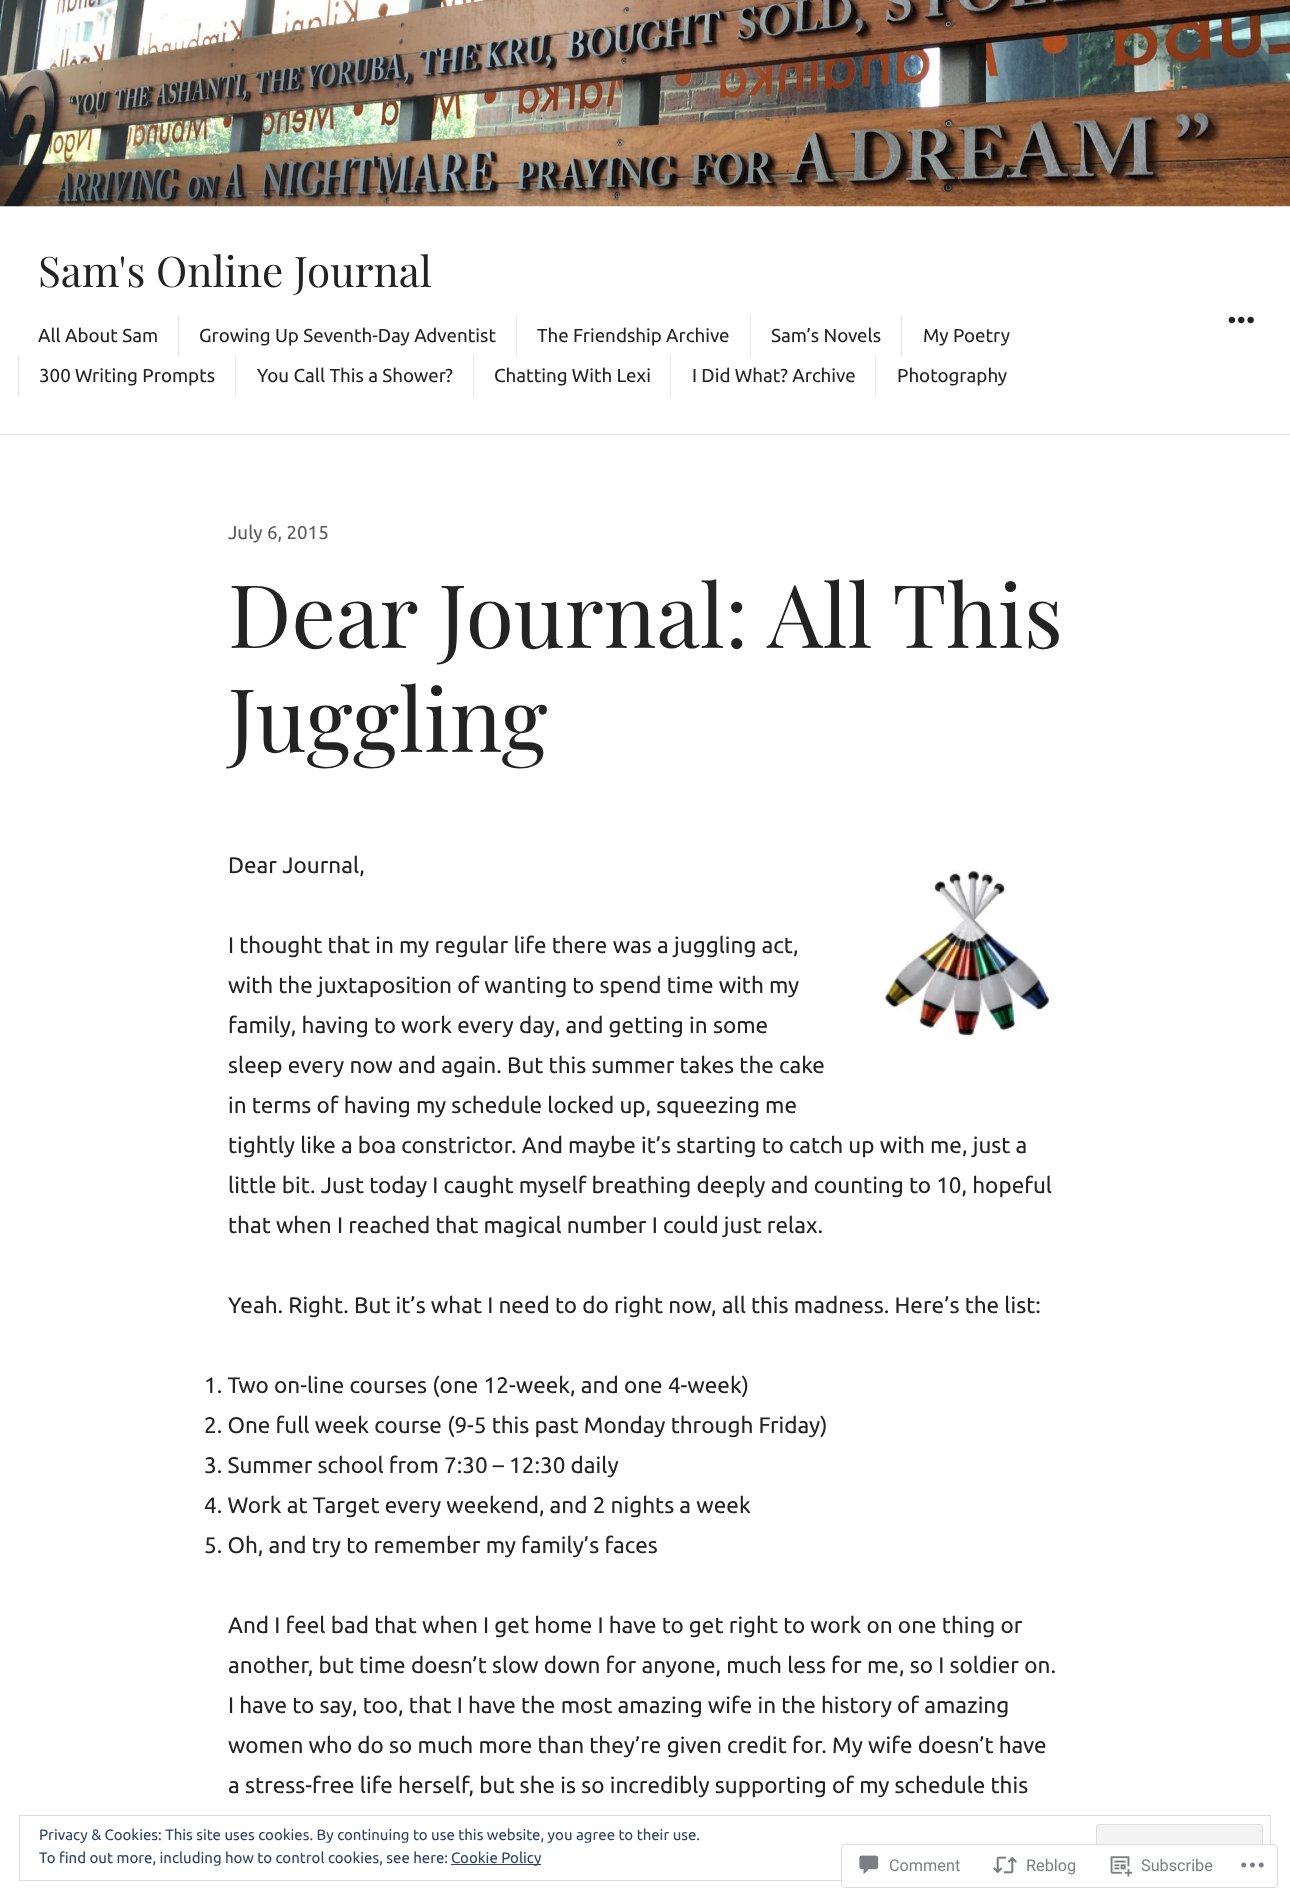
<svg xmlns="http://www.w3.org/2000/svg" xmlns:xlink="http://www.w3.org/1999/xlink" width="1290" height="1900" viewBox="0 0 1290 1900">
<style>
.cls-1{font:42.25px Playfair Display;fill:#232323}
.cls-2{font:18.75px Ubuntu;fill:#232323}
.cls-3{font:18.75px Ubuntu;fill:#5b5b5b}
.cls-4{font:87.75px Playfair Display;fill:#232323}
.cls-5{font:22.5px Ubuntu;fill:#232323}
.cls-6{font:15px Ubuntu;fill:#2e4467}
.cls-7{font:16.25px Roboto;fill:#7b7f85}
</style>
<rect width="100%" height="100%" fill="#ffffff"/>
<image xlink:href="image0.png" x="0" y="0" width="1290" height="207"/>
<rect fill="#e6e6e6" x="0" y="434" width="1290" height="1"/>
<image xlink:href="image1.png" x="1228" y="316" width="26" height="8"/>
<rect fill="#e6e6e6" x="178" y="316" width="1" height="40"/>
<rect fill="#e6e6e6" x="516" y="316" width="1" height="40"/>
<rect fill="#e6e6e6" x="750" y="316" width="1" height="40"/>
<rect fill="#e6e6e6" x="901" y="316" width="1" height="40"/>
<rect fill="#e6e6e6" x="18" y="356" width="1" height="40"/>
<rect fill="#e6e6e6" x="235" y="356" width="1" height="40"/>
<rect fill="#e6e6e6" x="473" y="356" width="1" height="40"/>
<rect fill="#e6e6e6" x="670" y="356" width="1" height="40"/>
<rect fill="#e6e6e6" x="875" y="356" width="1" height="40"/>
<image xlink:href="image2.png" x="883" y="870" width="170" height="166"/>
<rect fill="none" stroke="#dedede" x="19.5" y="1815.5" width="1251" height="65"/>
<rect fill="#f3f3f3" stroke="#dedede" x="1096.5" y="1824.5" width="166" height="48" rx="3.5"/>
<rect fill="#2e4467" x="451" y="1864" width="90" height="1"/>
<rect fill="#ffffff" fill-opacity="0.98" x="841" y="1844" width="437" height="44" rx="4"/>
<rect fill="none" stroke="#dcdcde" stroke-opacity="0.98" x="841.5" y="1844.5" width="436" height="43" rx="3.5"/>
<image xlink:href="image3.png" x="859" y="1855" width="20" height="20"/>
<image xlink:href="image4.png" x="993" y="1856" width="24" height="18"/>
<image xlink:href="image5.png" x="1110" y="1856" width="23" height="21"/>
<image xlink:href="image6.png" x="1241" y="1862" width="23" height="6"/>
<text class="cls-1" x="38" y="287">Sam's Online Journal</text>
<text class="cls-2" x="38" y="342">All About Sam</text>
<text class="cls-2" x="199" y="342">Growing Up Seventh-Day Adventist</text>
<text class="cls-2" x="537" y="342">The Friendship Archive</text>
<text class="cls-2" x="771" y="342">Sam’s Novels</text>
<text class="cls-2" x="923" y="342">My Poetry</text>
<text class="cls-2" x="39" y="382">300 Writing Prompts</text>
<text class="cls-2" x="257" y="382">You Call This a Shower?</text>
<text class="cls-2" x="494" y="382">Chatting With Lexi</text>
<text class="cls-2" x="692" y="382">I Did What? Archive</text>
<text class="cls-2" x="897" y="382">Photography</text>
<text class="cls-3" x="228" y="539">July 6, 2015</text>
<text class="cls-4"><tspan x="228" y="648">Dear Journal: All This</tspan><tspan x="228" y="752">Juggling</tspan></text>
<text class="cls-5" x="228" y="873">Dear Journal,</text>
<text class="cls-5"><tspan x="228" y="953">I thought that in my regular life there was a juggling act,</tspan><tspan x="228" y="993">with the juxtaposition of wanting to spend time with my</tspan><tspan x="228" y="1033">family, having to work every day, and getting in some</tspan><tspan x="228" y="1073">sleep every now and again. But this summer takes the cake</tspan><tspan x="228" y="1113">in terms of having my schedule locked up, squeezing me</tspan><tspan x="228" y="1153">tightly like a boa constrictor. And maybe it’s starting to catch up with me, just a</tspan><tspan x="228" y="1193">little bit. Just today I caught myself breathing deeply and counting to 10, hopeful</tspan><tspan x="228" y="1233">that when I reached that magical number I could just relax.</tspan></text>
<text class="cls-5" x="228" y="1313">Yeah. Right. But it’s what I need to do right now, all this madness. Here’s the list:</text>
<text class="cls-5"><tspan x="204" y="1393">1. Two on-line courses (one 12-week, and one 4-week)</tspan><tspan x="204" y="1433">2. One full week course (9-5 this past Monday through Friday)</tspan><tspan x="204" y="1473">3. Summer school from 7:30 – 12:30 daily</tspan><tspan x="204" y="1513">4. Work at Target every weekend, and 2 nights a week</tspan><tspan x="204" y="1553">5. Oh, and try to remember my family’s faces</tspan></text>
<text class="cls-5"><tspan x="228" y="1633">And I feel bad that when I get home I have to get right to work on one thing or</tspan><tspan x="228" y="1673">another, but time doesn’t slow down for anyone, much less for me, so I soldier on.</tspan><tspan x="228" y="1713">I have to say, too, that I have the most amazing wife in the history of amazing</tspan><tspan x="228" y="1753">women who do so much more than they’re given credit for. My wife doesn’t have</tspan><tspan x="228" y="1793">a stress-free life herself, but she is so incredibly supporting of my schedule this</tspan></text>
<text class="cls-6"><tspan x="39" y="1840">Privacy &amp; Cookies: This site uses cookies. By continuing to use this website, you agree to their use.</tspan><tspan x="39" y="1863">To find out more, including how to control cookies, see here:</tspan></text>
<text class="cls-6" x="451" y="1863">Cookie Policy</text>
<text class="cls-7" x="889" y="1871">Comment</text>
<text class="cls-7" x="1026" y="1871">Reblog</text>
<text class="cls-7" x="1141" y="1871">Subscribe</text>
</svg>
